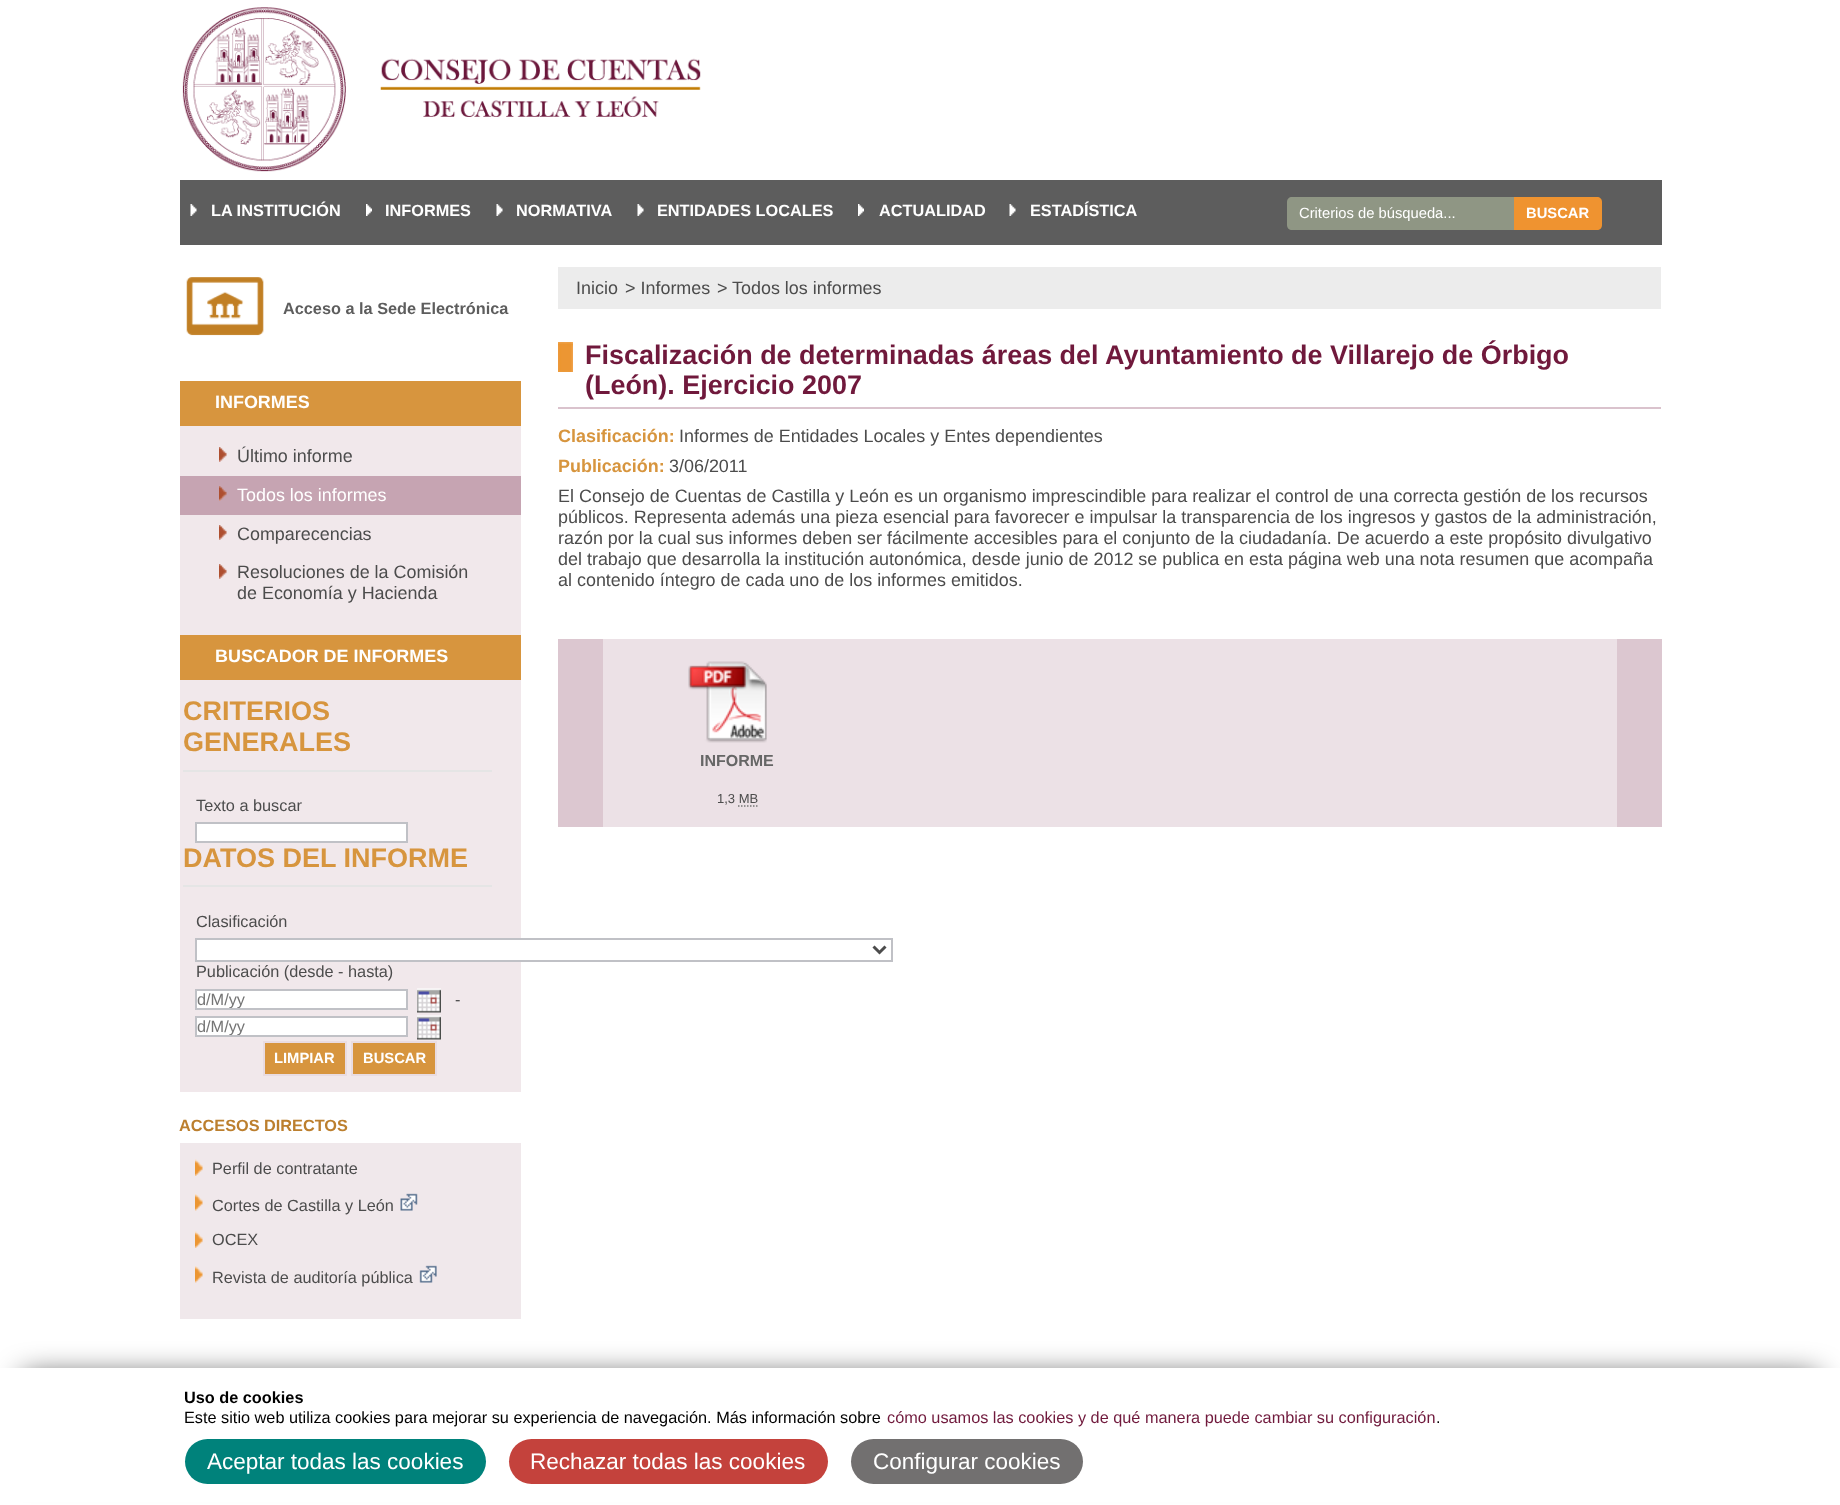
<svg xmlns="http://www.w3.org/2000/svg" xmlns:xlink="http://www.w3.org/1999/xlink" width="1840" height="1505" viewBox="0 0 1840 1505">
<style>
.cls-1{font:bold 16.3px Liberation Sans;fill:#ffffff}
.cls-2{font:14.75px Liberation Sans;fill:#ffffff}
.cls-3{font:bold 14.75px Liberation Sans;fill:#ffffff}
.cls-4{font:bold 16.3px Liberation Sans;fill:#5d5d5d}
.cls-5{font:bold 17.95px Liberation Sans;fill:#ffffff}
.cls-6{font:17.95px Liberation Sans;fill:#4c4c4c}
.cls-7{font:17.95px Liberation Sans;fill:#ffffff}
.cls-8{font:bold 27px Liberation Sans;fill:#d7953e}
.cls-9{font:16.3px Liberation Sans;fill:#4c4c4c}
.cls-10{font:16.3px Liberation Sans;fill:#757575}
.cls-11{font:bold 16.3px Liberation Sans;fill:#bc7f2e}
.cls-12{font:bold 26.95px Liberation Sans;fill:#70193c}
.cls-13{font:bold 17.95px Liberation Sans;fill:#d7953e}
.cls-14{font:bold 16px Liberation Sans;fill:#666666}
.cls-15{font:13px Liberation Sans;fill:#4c4c4c}
.cls-16{font:bold 16.3px Liberation Sans;fill:#000000}
.cls-17{font:16.3px Liberation Sans;fill:#000000}
.cls-18{font:16.3px Liberation Sans;fill:#70193c}
.cls-19{font:22.5px Liberation Sans;fill:#ffffff}
</style>
<defs>
<clipPath id="clip1"><rect x="197" y="990" width="210" height="18"/></clipPath>
<clipPath id="clip2"><rect x="197" y="1017" width="210" height="18"/></clipPath>
</defs>
<rect width="100%" height="100%" fill="#ffffff"/>
<image xlink:href="image0.png" x="182" y="7" width="519" height="165"/>
<rect fill="#5d5d5d" x="180" y="180" width="1482" height="65"/>
<image xlink:href="image1.png" x="190" y="204" width="7" height="12"/>
<image xlink:href="image2.png" x="366" y="204" width="6" height="12"/>
<image xlink:href="image1.png" x="496" y="204" width="7" height="12"/>
<image xlink:href="image3.png" x="637" y="204" width="7" height="12"/>
<image xlink:href="image4.png" x="858" y="204" width="6" height="12"/>
<image xlink:href="image1.png" x="1009" y="204" width="7" height="12"/>
<path fill="#8f9684" d="M1292 197H1514V230H1292C1289 230 1287 228 1287 225V202C1287 199 1289 197 1292 197Z"/>
<path fill="#ef9330" d="M1514 197H1597C1600 197 1602 199 1602 202V225C1602 228 1600 230 1597 230H1514Z"/>
<image xlink:href="image5.png" x="186" y="277" width="78" height="59"/>
<rect fill="#d7953e" x="180" y="381" width="341" height="45"/>
<rect fill="#f1e8eb" x="180" y="426" width="341" height="209"/>
<image xlink:href="image6.png" x="219" y="447" width="8" height="15"/>
<rect fill="#c6a4b2" x="180" y="476" width="341" height="39"/>
<image xlink:href="image7.png" x="219" y="486" width="8" height="15"/>
<image xlink:href="image6.png" x="219" y="525" width="8" height="15"/>
<image xlink:href="image6.png" x="219" y="564" width="8" height="15"/>
<rect fill="#d7953e" x="180" y="635" width="341" height="45"/>
<rect fill="#f1e8eb" x="180" y="680" width="341" height="412"/>
<rect fill="#e5e5e5" x="183" y="770" width="309" height="2"/>
<rect fill="#ffffff" stroke="#c0c1c6" stroke-width="2" x="196" y="823" width="211" height="19"/>
<rect fill="#e5e5e5" x="183" y="885" width="309" height="2"/>
<rect fill="#ffffff" x="197" y="940" width="324" height="20"/>
<rect fill="none" stroke="#c0c1c6" stroke-width="2" x="196" y="939" width="696" height="22"/>
<path fill="none" stroke="#4c4c4c" stroke-width="3" d="M873.5 946.5L879.5 952.5L885.5 946.5"/>
<rect fill="#ffffff" stroke="#c0c1c6" stroke-width="2" x="196" y="990" width="211" height="19"/>
<image xlink:href="image8.png" x="417" y="988" width="24" height="25"/>
<rect fill="#ffffff" stroke="#c0c1c6" stroke-width="2" x="196" y="1017" width="211" height="19"/>
<image xlink:href="image8.png" x="417" y="1015" width="24" height="25"/>
<rect fill="#d7953e" stroke="#e9dce1" stroke-width="2" x="264" y="1042" width="82" height="33"/>
<rect fill="#d7953e" stroke="#e9dce1" stroke-width="2" x="352" y="1042" width="84" height="33"/>
<rect fill="#f0e8eb" x="180" y="1143" width="341" height="176"/>
<image xlink:href="image9.png" x="195" y="1159" width="8" height="17"/>
<image xlink:href="image10.png" x="195" y="1194" width="8" height="17"/>
<image xlink:href="image11.png" x="400" y="1193" width="18" height="18"/>
<image xlink:href="image9.png" x="195" y="1231" width="8" height="17"/>
<image xlink:href="image10.png" x="195" y="1266" width="8" height="17"/>
<image xlink:href="image12.png" x="419" y="1265" width="18" height="18"/>
<rect fill="#ececec" x="558" y="267" width="1103" height="42"/>
<image xlink:href="image13.png" x="558" y="342" width="15" height="30"/>
<rect fill="#dac3cd" x="558" y="407" width="1103" height="2"/>
<rect fill="#dcc7d0" x="558" y="639" width="1104" height="188"/>
<rect fill="#ece1e6" x="603" y="639" width="1014" height="188"/>
<image xlink:href="image14.png" x="688" y="661" width="79" height="82"/>
<path fill="none" stroke="#777777" stroke-width="1.5" stroke-dasharray="1.5 1.5" d="M738 806H757.5"/>
<rect fill="#000000" fill-opacity="0.75" filter="blur(15px)" x="23" y="1376" width="1795" height="93"/>
<rect fill="#ffffff" x="0" y="1368" width="1840" height="134"/>
<rect fill="#00827b" x="185" y="1439" width="301" height="45" rx="22.5"/>
<rect fill="#c4423c" x="509" y="1439" width="319" height="45" rx="22.5"/>
<rect fill="#727070" x="851" y="1439" width="232" height="45" rx="22.5"/>
<text class="cls-1" x="211" y="216">LA INSTITUCIÓN</text>
<text class="cls-1" x="385" y="216">INFORMES</text>
<text class="cls-1" x="516" y="216">NORMATIVA</text>
<text class="cls-1" x="657" y="216">ENTIDADES LOCALES</text>
<text class="cls-1" x="879" y="216">ACTUALIDAD</text>
<text class="cls-1" x="1030" y="216">ESTADÍSTICA</text>
<text class="cls-2" x="1299" y="218">Criterios de búsqueda...</text>
<text class="cls-3" x="1526" y="218">BUSCAR</text>
<text class="cls-4" x="283" y="314">Acceso a la Sede Electrónica</text>
<text class="cls-5" x="215" y="408">INFORMES</text>
<text class="cls-6" x="237" y="462">Último informe</text>
<text class="cls-7" x="237" y="501">Todos los informes</text>
<text class="cls-6" x="237" y="540">Comparecencias</text>
<text class="cls-6"><tspan x="237" y="578">Resoluciones de la Comisión</tspan><tspan x="237" y="599">de Economía y Hacienda</tspan></text>
<text class="cls-5" x="215" y="662">BUSCADOR DE INFORMES</text>
<text class="cls-8"><tspan x="183" y="720">CRITERIOS</tspan><tspan x="183" y="751">GENERALES</tspan></text>
<text class="cls-9" x="196" y="811">Texto a buscar</text>
<text class="cls-8" x="183" y="867">DATOS DEL INFORME</text>
<text class="cls-9" x="196" y="927">Clasificación</text>
<text class="cls-9" x="196" y="977">Publicación (desde - hasta)</text>
<g clip-path="url(#clip1)">
<text class="cls-10" x="197" y="1005">d/M/yy</text>
</g>
<text class="cls-9" x="455" y="1005">-</text>
<g clip-path="url(#clip2)">
<text class="cls-10" x="197" y="1032">d/M/yy</text>
</g>
<text class="cls-3" x="274" y="1063">LIMPIAR</text>
<text class="cls-3" x="363" y="1063">BUSCAR</text>
<text class="cls-11" x="179" y="1131">ACCESOS DIRECTOS</text>
<text class="cls-9" x="212" y="1174">Perfil de contratante</text>
<text class="cls-9" x="212" y="1211">Cortes de Castilla y León</text>
<text class="cls-9" x="212" y="1245">OCEX</text>
<text class="cls-9" x="212" y="1283">Revista de auditoría pública</text>
<text class="cls-6" x="576" y="294">Inicio</text>
<text class="cls-6" x="625" y="294">&gt; Informes</text>
<text class="cls-6" x="717" y="294">&gt;</text>
<text class="cls-6" x="732" y="294">Todos los informes</text>
<text class="cls-12"><tspan x="585" y="364">Fiscalización de determinadas áreas del Ayuntamiento de Villarejo de Órbigo</tspan><tspan x="585" y="394">(León). Ejercicio 2007</tspan></text>
<text class="cls-13" x="558" y="442">Clasificación:</text>
<text class="cls-6" x="679" y="442">Informes de Entidades Locales y Entes dependientes</text>
<text class="cls-13" x="558" y="472">Publicación:</text>
<text class="cls-6" x="669" y="472">3/06/2011</text>
<text class="cls-6"><tspan x="558" y="502">El Consejo de Cuentas de Castilla y León es un organismo imprescindible para realizar el control de una correcta gestión de los recursos</tspan><tspan x="558" y="523">públicos. Representa además una pieza esencial para favorecer e impulsar la transparencia de los ingresos y gastos de la administración,</tspan><tspan x="558" y="544">razón por la cual sus informes deben ser fácilmente accesibles para el conjunto de la ciudadanía. De acuerdo a este propósito divulgativo</tspan><tspan x="558" y="565">del trabajo que desarrolla la institución autonómica, desde junio de 2012 se publica en esta página web una nota resumen que acompaña</tspan><tspan x="558" y="586">al contenido íntegro de cada uno de los informes emitidos.</tspan></text>
<text class="cls-14" x="700" y="766">INFORME</text>
<text class="cls-15" x="717" y="803">1,3 MB</text>
<text class="cls-16" x="184" y="1403">Uso de cookies</text>
<text class="cls-17" x="184" y="1423">Este sitio web utiliza cookies para mejorar su experiencia de navegación. Más información sobre</text>
<text class="cls-18" x="887" y="1423">cómo usamos las cookies y de qué manera puede cambiar su configuración</text>
<text class="cls-17" x="1436" y="1423">.</text>
<text class="cls-19" x="207" y="1469">Aceptar todas las cookies</text>
<text class="cls-19" x="530" y="1469">Rechazar todas las cookies</text>
<text class="cls-19" x="873" y="1469">Configurar cookies</text>
</svg>
